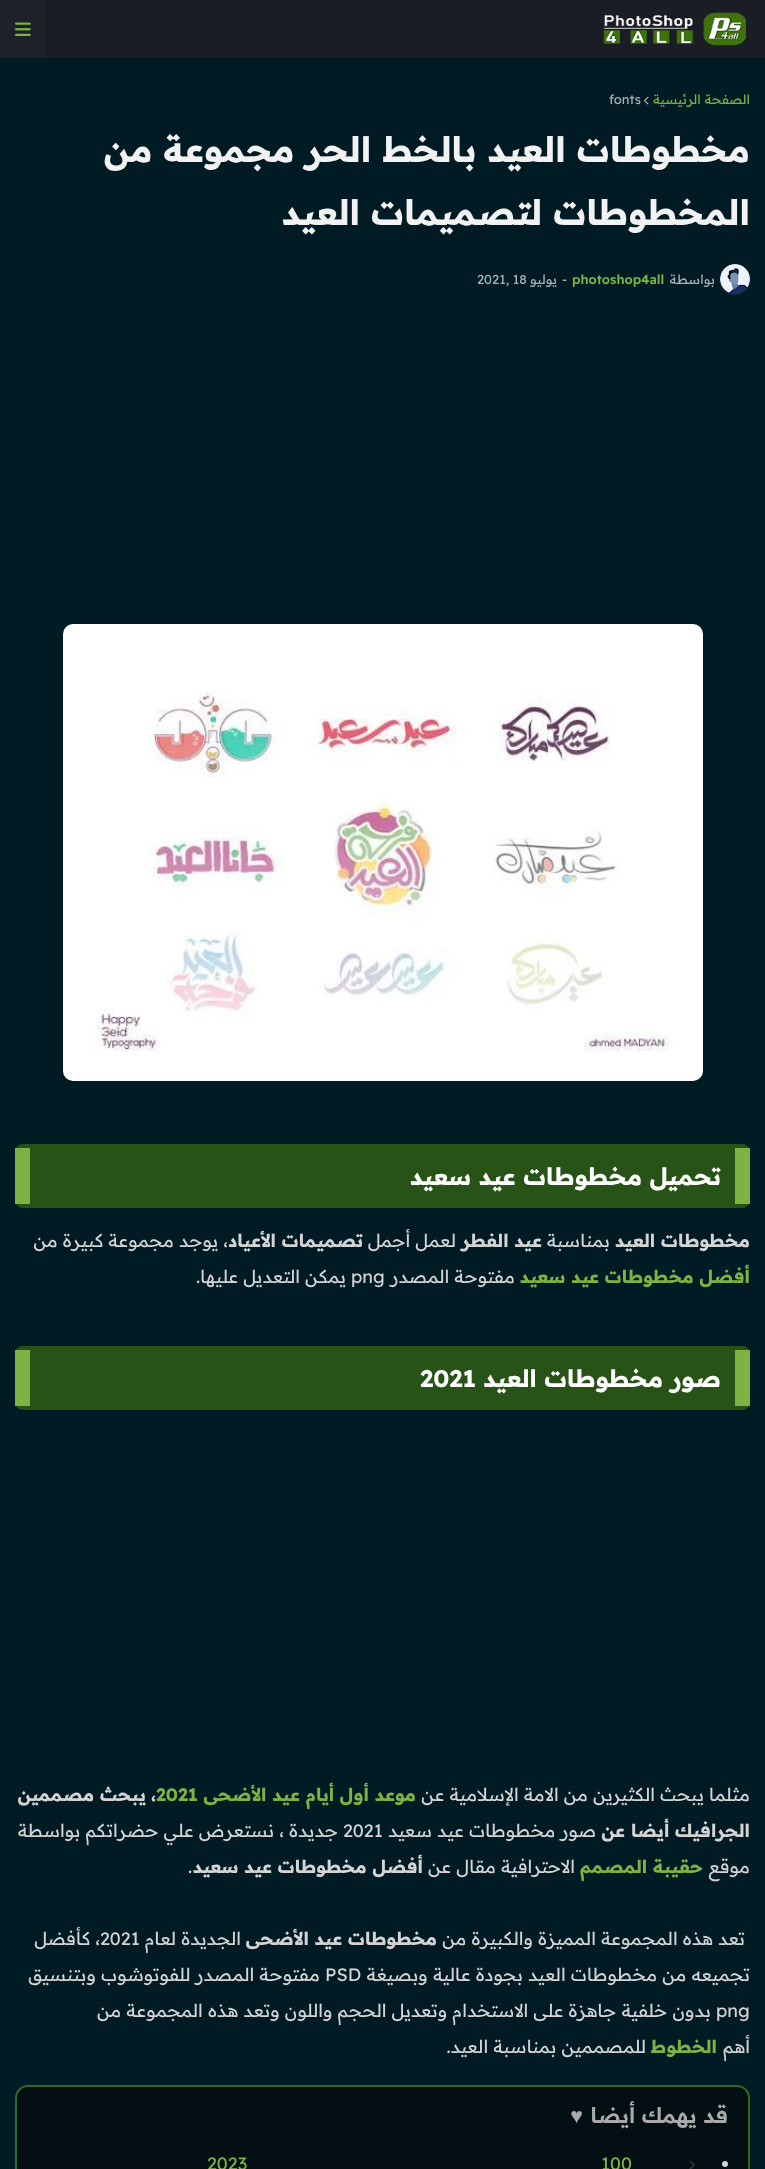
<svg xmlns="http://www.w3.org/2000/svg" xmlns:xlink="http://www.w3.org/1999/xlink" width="765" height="2169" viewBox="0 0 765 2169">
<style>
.cls-1{font:13px Readex Pro;direction:rtl;fill:#7cb342}
.cls-2{font:13px Readex Pro;fill:#a9b4ba}
.cls-3{font:bold 35px Readex Pro;direction:rtl;fill:#f2f2f2}
.cls-4{font:13px Readex Pro;direction:rtl;fill:#a9b4ba}
.cls-5{font:600 13px Readex Pro;fill:#7cb342}
.cls-6{font:bold 24px Readex Pro;direction:rtl;fill:#ffffff}
.cls-7{font:bold 18px Readex Pro;direction:rtl;fill:#d4d4d4}
.cls-8{font:18px Readex Pro;direction:rtl;fill:#d4d4d4}
.cls-9{font:bold 18px Readex Pro;direction:rtl;fill:#7cb342}
.cls-10{font:18px Readex Pro;fill:#d4d4d4}
.cls-11{font:bold 24px Readex Pro;fill:#ffffff}
.cls-12{font:bold 18px Readex Pro;fill:#7cb342}
.cls-13{font:600 21.5px Readex Pro;direction:rtl;fill:#aaaaaa}
.cls-14{font:bold 21.5px Liberation Sans;direction:rtl;fill:#aaaaaa}
.cls-15{font:18px Readex Pro;fill:#7cb342}
</style>
<rect width="100%" height="100%" fill="#001b24"/>
<rect fill="#1a1d25" x="46" y="0" width="719" height="58"/>
<image xlink:href="image0.png" x="603" y="12" width="143" height="34"/>
<rect fill="#1e2129" x="0" y="0" width="46" height="58"/>
<image xlink:href="image1.png" x="15" y="22" width="16" height="14"/>
<image xlink:href="image2.png" x="644" y="96" width="5" height="9"/>
<rect fill="#9b9b9b" fill-opacity="0.15" filter="blur(1px)" x="720" y="265" width="30" height="30" rx="15"/>
<circle fill="#9b9b9b" fill-opacity="0.08" cx="735" cy="279" r="15"/>
<image xlink:href="image3.png" x="720" y="264" width="30" height="30"/>
<image xlink:href="image4.png" x="63" y="624" width="640" height="457"/>
<rect fill="#275316" x="15" y="1144" width="735" height="64" rx="8"/>
<rect fill="#7cb342" x="735" y="1148" width="15" height="56"/>
<rect fill="#7cb342" x="15" y="1148" width="15" height="56"/>
<rect fill="#275316" x="15" y="1346" width="735" height="64" rx="8"/>
<rect fill="#7cb342" x="735" y="1350" width="15" height="56"/>
<rect fill="#7cb342" x="15" y="1350" width="15" height="56"/>
<rect fill="#030f13" stroke="#33691e" stroke-width="2" x="16" y="2086" width="733" height="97" rx="12"/>
<circle fill="#d4d4d4" cx="725" cy="2164" r="3"/>
<image xlink:href="image5.png" x="689" y="2160" width="6" height="9"/>
<text class="cls-1" x="750" y="104">الصفحة الرئيسية</text>
<text class="cls-2" x="609" y="104">fonts</text>
<text class="cls-3"><tspan x="750" y="162">مخطوطات العيد بالخط الحر مجموعة من</tspan><tspan x="750" y="225">المخطوطات لتصميمات العيد</tspan></text>
<text class="cls-4" x="715" y="284">بواسطة</text>
<text class="cls-5" x="572" y="284">photoshop4all</text>
<text class="cls-2" x="562" y="284">-</text>
<text class="cls-4" x="557" y="284">يوليو</text>
<text class="cls-2" x="477" y="284">2021, 18</text>
<text class="cls-6" x="721" y="1185">تحميل مخطوطات عيد سعيد</text>
<text class="cls-7" x="750" y="1247">مخطوطات العيد</text>
<text class="cls-8" x="610" y="1247">بمناسبة</text>
<text class="cls-7" x="542" y="1247">عيد الفطر</text>
<text class="cls-8" x="456" y="1247">لعمل أجمل</text>
<text class="cls-7" x="363" y="1247">تصميمات الأعياد</text>
<text class="cls-8" x="228" y="1247">، يوجد مجموعة كبيرة من</text>
<text class="cls-9" x="750" y="1283">أفضل مخطوطات عيد سعيد</text>
<text class="cls-8" x="515" y="1283">مفتوحة المصدر</text>
<text class="cls-10" x="351" y="1283">png</text>
<text class="cls-8" x="346" y="1283">يمكن التعديل عليها.</text>
<text class="cls-6" x="721" y="1387">صور مخطوطات العيد</text>
<text class="cls-11" x="420" y="1387">2021</text>
<text class="cls-8" x="750" y="1801">مثلما يبحث الكثيرين من الامة الإسلامية عن</text>
<text class="cls-9" x="416" y="1801">موعد أول أيام عيد الأضحى</text>
<text class="cls-12" x="156" y="1801">2021</text>
<text class="cls-7" x="156" y="1801">، يبحث مصممين</text>
<text class="cls-7" x="750" y="1837">الجرافيك أيضا عن</text>
<text class="cls-8" x="596" y="1837">صور مخطوطات عيد سعيد</text>
<text class="cls-10" x="343" y="1837">2021</text>
<text class="cls-8" x="338" y="1837">جديدة ، نستعرض علي حضراتكم بواسطة</text>
<text class="cls-8" x="750" y="1873">موقع</text>
<text class="cls-9" x="703" y="1873">حقيبة المصمم</text>
<text class="cls-8" x="575" y="1873">الاحترافية مقال عن</text>
<text class="cls-7" x="423" y="1873">أفضل مخطوطات عيد سعيد</text>
<text class="cls-10" x="188" y="1873">.</text>
<text class="cls-8" x="745" y="1945">تعد هذه المجموعة المميزة والكبيرة من</text>
<text class="cls-7" x="437" y="1945">مخطوطات عيد الأضحى</text>
<text class="cls-8" x="241" y="1945">الجديدة لعام</text>
<text class="cls-10" x="100" y="1945">2021</text>
<text class="cls-8" x="100" y="1945">، كأفضل</text>
<text class="cls-8" x="750" y="1981">تجميعه من مخطوطات العيد بجودة عالية وبصيغة</text>
<text class="cls-10" x="325" y="1981">PSD</text>
<text class="cls-8" x="320" y="1981">مفتوحة المصدر للفوتوشوب وبتنسيق</text>
<text class="cls-10" x="716" y="2017">png</text>
<text class="cls-8" x="711" y="2017">بدون خلفية جاهزة على الاستخدام وتعديل الحجم واللون وتعد هذه المجموعة من</text>
<text class="cls-8" x="750" y="2053">أهم</text>
<text class="cls-9" x="717" y="2053">الخطوط</text>
<text class="cls-8" x="646" y="2053">للمصممين بمناسبة العيد.</text>
<text class="cls-13" x="728" y="2123">قد يهمك أيضا</text>
<text class="cls-14" x="583" y="2123">♥</text>
<text class="cls-15" x="601" y="2170">100</text>
<text class="cls-15" x="207" y="2170">2023</text>
</svg>
